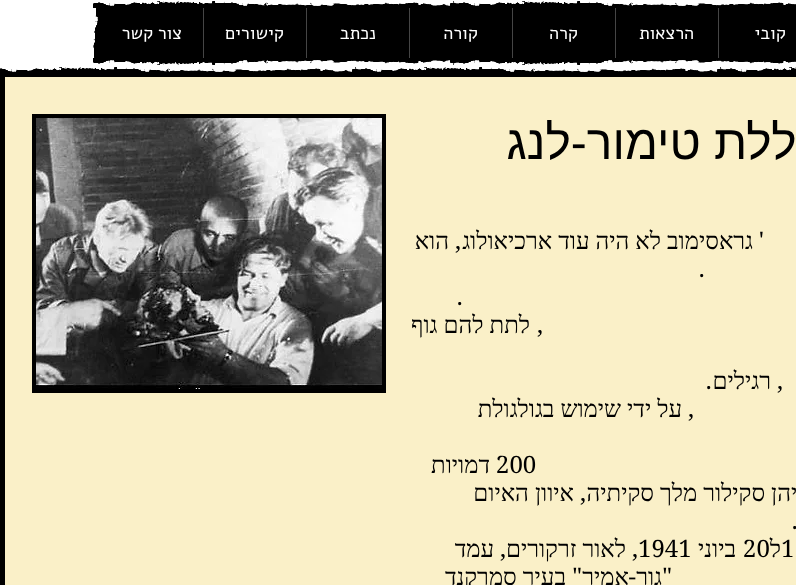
<svg xmlns="http://www.w3.org/2000/svg" xmlns:xlink="http://www.w3.org/1999/xlink" width="796" height="585" viewBox="0 0 796 585">
<style>
.cls-1{font:18px Alef;direction:rtl;fill:#ffffff}
.cls-2{font:48px Liberation Sans;direction:rtl;fill:#000000}
.cls-3{font:24px 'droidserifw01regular';direction:rtl;fill:#000000}
.cls-4{font:24px Liberation Serif;direction:rtl;fill:#000000}
.cls-5{font:24px 'droidserifw01regular';fill:#000000}
</style>
<rect width="100%" height="100%" fill="#ffffff"/>
<image xlink:href="image0.png" x="93" y="1" width="703" height="7"/>
<rect fill="#000000" x="100" y="8" width="696" height="50"/>
<rect fill="#454545" x="718" y="8" width="1" height="50"/>
<rect fill="#454545" x="615" y="8" width="1" height="50"/>
<rect fill="#454545" x="512" y="8" width="1" height="50"/>
<rect fill="#454545" x="409" y="8" width="1" height="50"/>
<rect fill="#454545" x="306" y="8" width="1" height="50"/>
<rect fill="#454545" x="203" y="8" width="1" height="50"/>
<image xlink:href="image1.png" x="93" y="8" width="7" height="50"/>
<image xlink:href="image2.png" x="93" y="58" width="703" height="7"/>
<rect fill="#faf0c8" x="5" y="77" width="791" height="508"/>
<image xlink:href="image3.png" x="0" y="67" width="796" height="10"/>
<rect fill="#000000" x="0" y="77" width="5" height="508"/>
<rect fill="#000000" x="32" y="114" width="354" height="279"/>
<image xlink:href="image4.png" x="36" y="118" width="346" height="271"/>
<text class="cls-1" x="786" y="39">קובי</text>
<text class="cls-1" x="694" y="39">הרצאות</text>
<text class="cls-1" x="578" y="39">קרה</text>
<text class="cls-1" x="478" y="39">קורה</text>
<text class="cls-1" x="376" y="39">נכתב</text>
<text class="cls-1" x="284" y="39">קישורים</text>
<text class="cls-1" x="182" y="39">צור קשר</text>
<text class="cls-2" x="825" y="159">קללת טימור-לנג</text>
<text class="cls-3" x="764" y="249">'</text>
<text class="cls-4" x="753" y="249">גראסימוב לא היה עוד ארכיאולוג</text>
<text class="cls-3" x="461" y="249">,</text>
<text class="cls-4" x="449" y="249">הוא</text>
<text class="cls-3" x="705" y="277">.</text>
<text class="cls-3" x="463" y="305">.</text>
<text class="cls-3" x="543" y="333">,</text>
<text class="cls-4" x="530" y="333">לתת להם גוף</text>
<text class="cls-3" x="783" y="389">,</text>
<text class="cls-4" x="771" y="389">רגילים</text>
<text class="cls-3" x="712" y="389">.</text>
<text class="cls-3" x="694" y="417">,</text>
<text class="cls-4" x="682" y="417">על ידי שימוש בגולגולת</text>
<text class="cls-5" x="496" y="473">200</text>
<text class="cls-4" x="490" y="473">דמויות</text>
<text class="cls-4" x="823" y="501">ביניהן סקילור מלך סקיתיה</text>
<text class="cls-3" x="586" y="501">,</text>
<text class="cls-4" x="574" y="501">איוון האיום</text>
<text class="cls-3" x="798" y="529">.</text>
<text class="cls-5" x="781" y="557">1</text>
<text class="cls-4" x="781" y="557">ל</text>
<text class="cls-5" x="743" y="557">20</text>
<text class="cls-4" x="736" y="557">ביוני</text>
<text class="cls-5" x="638" y="557">1941</text>
<text class="cls-3" x="638" y="557">,</text>
<text class="cls-4" x="626" y="557">לאור זרקורים</text>
<text class="cls-3" x="506" y="557">,</text>
<text class="cls-4" x="494" y="557">עמד</text>
<text class="cls-3" x="672" y="585">"</text>
<text class="cls-4" x="662" y="585">גור</text>
<text class="cls-3" x="636" y="585">-</text>
<text class="cls-4" x="629" y="585">אמיר</text>
<text class="cls-3" x="582" y="585">"</text>
<text class="cls-4" x="566" y="585">בעיר סמרקנד</text>
</svg>
